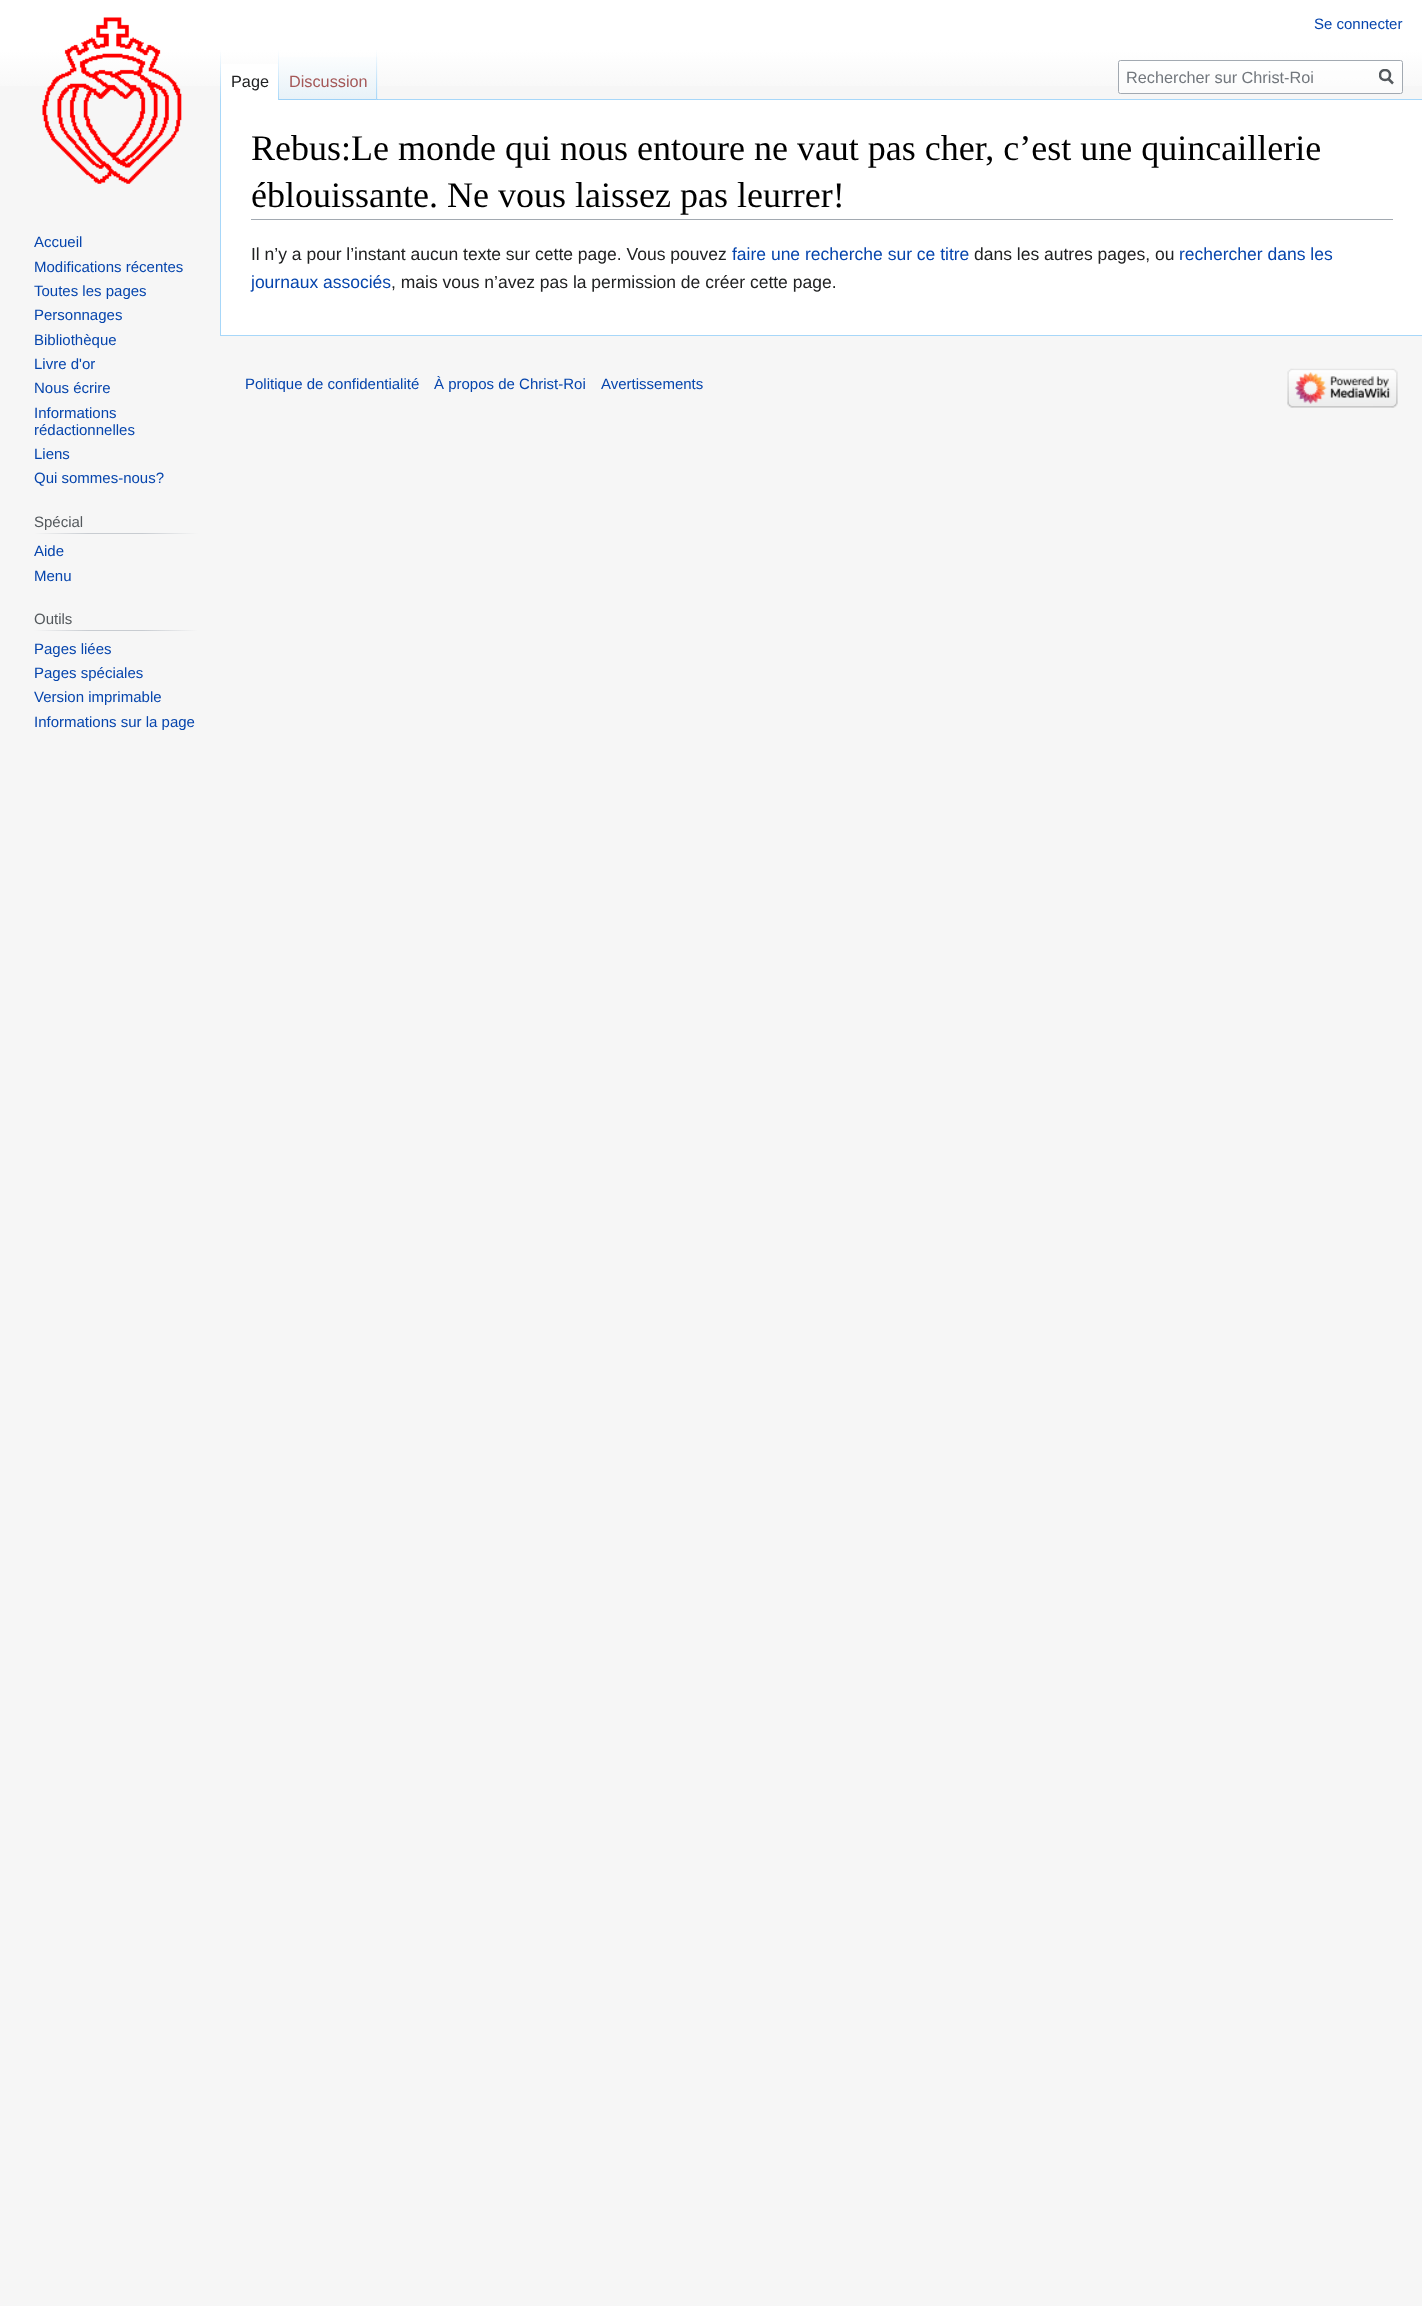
<svg xmlns="http://www.w3.org/2000/svg" xmlns:xlink="http://www.w3.org/1999/xlink" width="1422" height="2306" viewBox="0 0 1422 2306">
<style>
.cls-1{font:15px Liberation Sans;fill:#0645ad}
.cls-2{font:16.25px Liberation Sans;fill:#202122}
.cls-3{font:16.25px Liberation Sans;fill:#a55858}
.cls-4{font:16.25px Liberation Sans;fill:#72777d}
.cls-5{font:15px Liberation Sans;fill:#54595d}
.cls-6{font:36px Liberation Serif;fill:#000000}
.cls-7{font:17.5px Liberation Sans;fill:#202122}
.cls-8{font:17.5px Liberation Sans;fill:#0645ad}
</style>
<defs>
<linearGradient id="g1" gradientUnits="userSpaceOnUse" x1="711" y1="0" x2="711" y2="100"><stop offset="0.5" stop-color="#ffffff"/><stop offset="1" stop-color="#f6f6f6"/></linearGradient>
<linearGradient id="g2" gradientUnits="userSpaceOnUse" x1="221" y1="50" x2="221" y2="100"><stop offset="0" stop-color="#a7d7f9" stop-opacity="0"/><stop offset="1" stop-color="#a7d7f9"/></linearGradient>
<linearGradient id="g3" gradientUnits="userSpaceOnUse" x1="278" y1="50" x2="278" y2="100"><stop offset="0" stop-color="#ffffff"/><stop offset="1" stop-color="#a7d7f9"/></linearGradient>
<linearGradient id="g4" gradientUnits="userSpaceOnUse" x1="328" y1="100" x2="328" y2="50"><stop offset="0" stop-color="#77c1f6"/><stop offset="0.03" stop-color="#e8f2f8"/><stop offset="1" stop-color="#ffffff"/></linearGradient>
<linearGradient id="g5" gradientUnits="userSpaceOnUse" x1="377" y1="50" x2="377" y2="100"><stop offset="0" stop-color="#a7d7f9" stop-opacity="0"/><stop offset="1" stop-color="#a7d7f9"/></linearGradient>
<clipPath id="clip1"><rect x="1379" y="69" width="15" height="16"/></clipPath>
<linearGradient id="g6" gradientUnits="userSpaceOnUse" x1="34" y1="533" x2="198" y2="533"><stop offset="0" stop-color="#f6f6f6"/><stop offset="0.33" stop-color="#c8ccd1"/><stop offset="0.66" stop-color="#c8ccd1"/><stop offset="1" stop-color="#f6f6f6"/></linearGradient>
<linearGradient id="g7" gradientUnits="userSpaceOnUse" x1="34" y1="631" x2="198" y2="631"><stop offset="0" stop-color="#f6f6f6"/><stop offset="0.33" stop-color="#c8ccd1"/><stop offset="0.66" stop-color="#c8ccd1"/><stop offset="1" stop-color="#f6f6f6"/></linearGradient>
</defs>
<rect width="100%" height="100%" fill="#f6f6f6"/>
<rect fill="url(#g1)" x="0" y="0" width="1422" height="86"/>
<rect fill="#a7d7f9" x="220" y="335" width="1202" height="1"/>
<rect fill="#a7d7f9" x="220" y="99" width="1" height="237"/>
<rect fill="url(#g2)" x="220" y="50" width="1" height="50"/>
<rect fill="#ffffff" x="221" y="64" width="57" height="36"/>
<rect fill="url(#g3)" x="278" y="50" width="1" height="50"/>
<rect fill="url(#g4)" x="279" y="57" width="99" height="43"/>
<rect fill="url(#g5)" x="376" y="50" width="1" height="50"/>
<rect fill="#ffffff" fill-opacity="0.5" stroke="#a2a9b1" x="1118.5" y="60.5" width="284" height="33" rx="2"/>
<path fill="none" stroke="#54595d" stroke-width="2.5" d="M1393 83.5L1388 78.5"/>
<g clip-path="url(#clip1)">
<circle fill="none" stroke="#54595d" stroke-width="2.5" cx="1385" cy="75" r="5"/>
</g>
<image xlink:href="image0.png" x="42" y="17" width="140" height="167"/>
<rect fill="url(#g6)" x="34" y="533" width="164" height="1"/>
<rect fill="url(#g7)" x="34" y="630" width="164" height="1"/>
<rect fill="#ffffff" x="221" y="100" width="1201" height="235"/>
<rect fill="#a7d7f9" x="378" y="99" width="1044" height="1"/>
<rect fill="#a2a9b1" x="251" y="219" width="1142" height="1"/>
<image xlink:href="image1.png" x="1287" y="368" width="111" height="40"/>
<text class="cls-1" x="1314" y="29">Se connecter</text>
<text class="cls-2" x="231" y="87">Page</text>
<text class="cls-3" x="289" y="87">Discussion</text>
<text class="cls-4" x="1126" y="83">Rechercher sur Christ-Roi</text>
<text class="cls-1"><tspan x="34" y="247">Accueil</tspan><tspan x="34" y="272">Modifications récentes</tspan><tspan x="34" y="296">Toutes les pages</tspan><tspan x="34" y="320">Personnages</tspan><tspan x="34" y="345">Bibliothèque</tspan><tspan x="34" y="369">Livre d'or</tspan><tspan x="34" y="393">Nous écrire</tspan><tspan x="34" y="418">Informations</tspan><tspan x="34" y="435">rédactionnelles</tspan><tspan x="34" y="459">Liens</tspan><tspan x="34" y="483">Qui sommes-nous?</tspan></text>
<text class="cls-5" x="34" y="527">Spécial</text>
<text class="cls-1"><tspan x="34" y="556">Aide</tspan><tspan x="34" y="581">Menu</tspan></text>
<text class="cls-5" x="34" y="624">Outils</text>
<text class="cls-1"><tspan x="34" y="654">Pages liées</tspan><tspan x="34" y="678">Pages spéciales</tspan><tspan x="34" y="702">Version imprimable</tspan><tspan x="34" y="727">Informations sur la page</tspan></text>
<text class="cls-6"><tspan x="251" y="160">Rebus:Le monde qui nous entoure ne vaut pas cher, c’est une quincaillerie</tspan><tspan x="251" y="207">éblouissante. Ne vous laissez pas leurrer!</tspan></text>
<text class="cls-7" x="251" y="260">Il n’y a pour l’instant aucun texte sur cette page. Vous pouvez</text>
<text class="cls-8" x="732" y="260">faire une recherche sur ce titre</text>
<text class="cls-7" x="974" y="260">dans les autres pages, ou</text>
<text class="cls-8" x="1179" y="260">rechercher dans les</text>
<text class="cls-8" x="251" y="288">journaux associés</text>
<text class="cls-7" x="391" y="288">, mais vous n’avez pas la permission de créer cette page.</text>
<text class="cls-1" x="245" y="389">Politique de confidentialité</text>
<text class="cls-1" x="434" y="389">À propos de Christ-Roi</text>
<text class="cls-1" x="601" y="389">Avertissements</text>
</svg>
